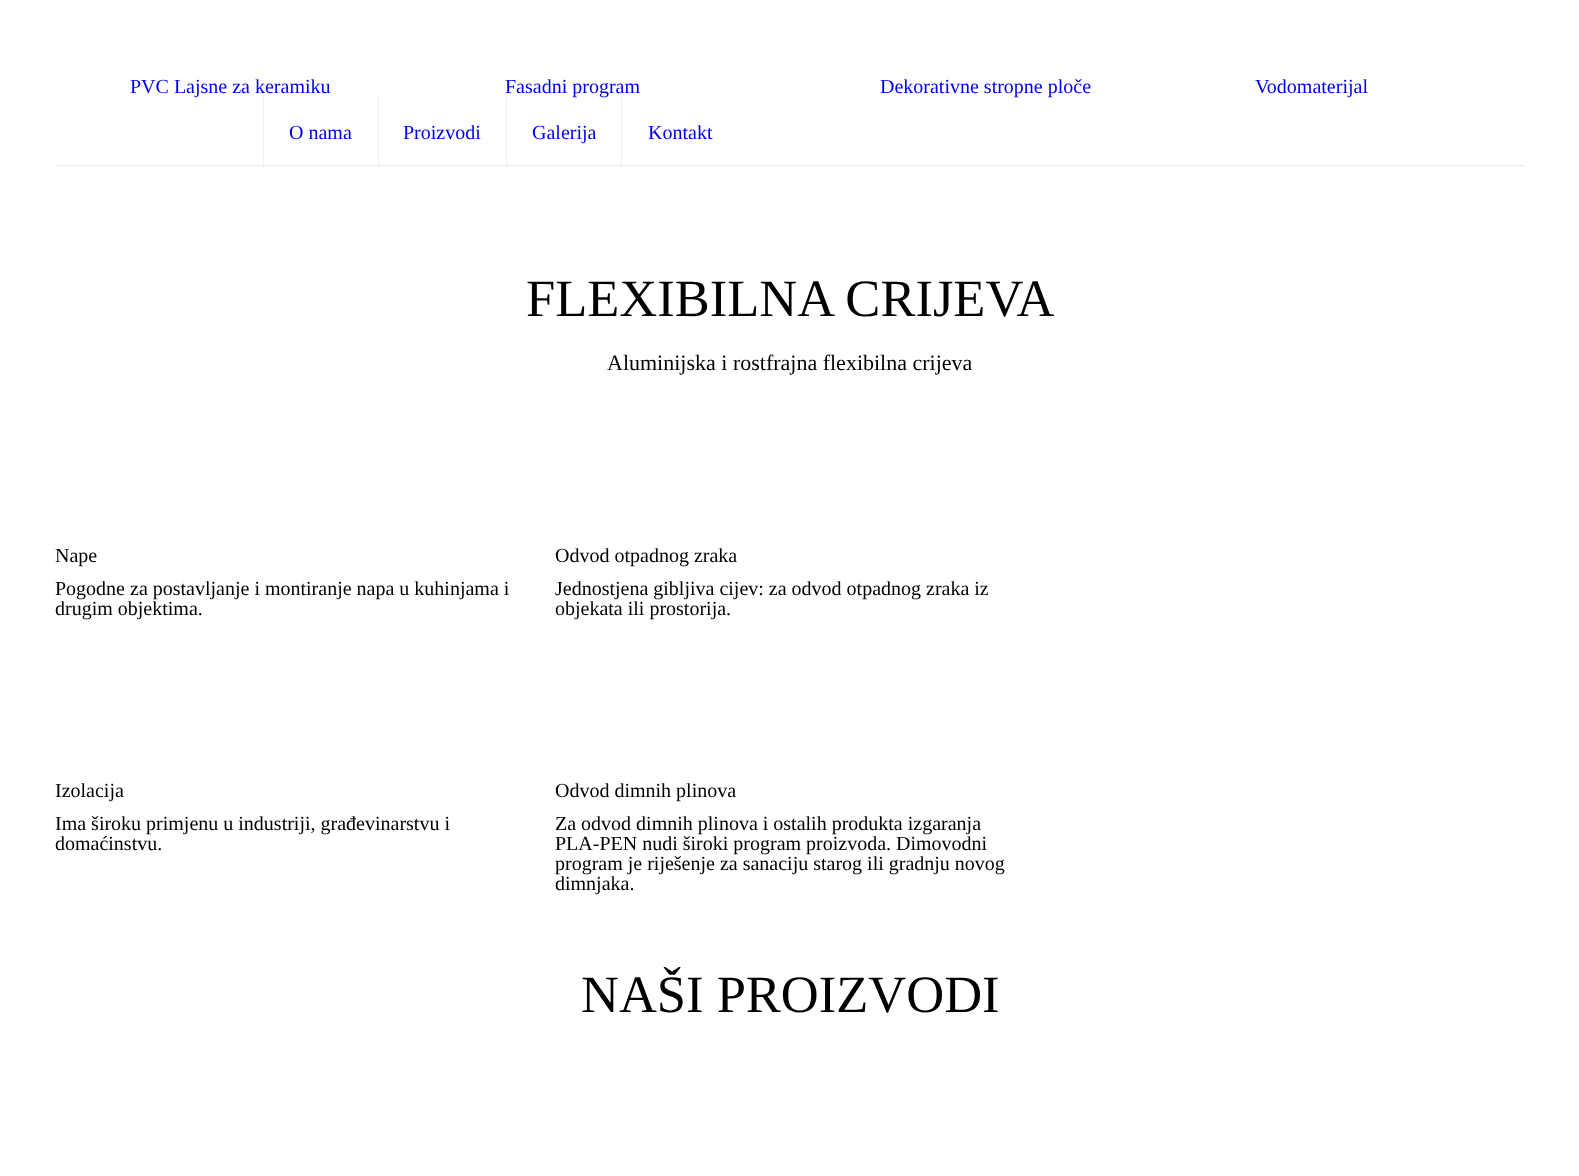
<svg xmlns="http://www.w3.org/2000/svg" xmlns:xlink="http://www.w3.org/1999/xlink" width="1579" height="1176" viewBox="0 0 1579 1176">
<style>
.cls-1{font:20px Liberation Serif;fill:#0000ee}
.cls-2{font:52.5px Liberation Serif;fill:#000000}
.cls-3{font:22px Liberation Serif;fill:#000000}
.cls-4{font:20px Liberation Serif;fill:#000000}
</style>
<rect width="100%" height="100%" fill="#ffffff"/>
<rect fill="#f2f2f2" x="621" y="95" width="1" height="75"/>
<rect fill="#f2f2f2" x="506" y="95" width="1" height="75"/>
<rect fill="#f2f2f2" x="378" y="95" width="1" height="75"/>
<rect fill="#f2f2f2" x="263" y="95" width="1" height="75"/>
<rect fill="#ebebeb" x="55" y="165" width="1470" height="1"/>
<rect fill="#dfdfdf" x="621" y="165" width="1" height="1"/>
<rect fill="#dfdfdf" x="506" y="165" width="1" height="1"/>
<rect fill="#dfdfdf" x="378" y="165" width="1" height="1"/>
<rect fill="#dfdfdf" x="263" y="165" width="1" height="1"/>
<text class="cls-1" x="130" y="93">PVC Lajsne za keramiku</text>
<text class="cls-1" x="505" y="93">Fasadni program</text>
<text class="cls-1" x="880" y="93">Dekorativne stropne ploče</text>
<text class="cls-1" x="1255" y="93">Vodomaterijal</text>
<text class="cls-2" x="526" y="316">FLEXIBILNA CRIJEVA</text>
<text class="cls-3" x="607" y="370">Aluminijska i rostfrajna flexibilna crijeva</text>
<text class="cls-4"><tspan x="55" y="562">Nape</tspan><tspan x="55" y="595">Pogodne za postavljanje i montiranje napa u kuhinjama i</tspan><tspan x="55" y="615">drugim objektima.</tspan></text>
<text class="cls-4"><tspan x="555" y="562">Odvod otpadnog zraka</tspan><tspan x="555" y="595">Jednostjena gibljiva cijev: za odvod otpadnog zraka iz</tspan><tspan x="555" y="615">objekata ili prostorija.</tspan></text>
<text class="cls-4"><tspan x="55" y="797">Izolacija</tspan><tspan x="55" y="830">Ima široku primjenu u industriji, građevinarstvu i</tspan><tspan x="55" y="850">domaćinstvu.</tspan></text>
<text class="cls-4"><tspan x="555" y="797">Odvod dimnih plinova</tspan><tspan x="555" y="830">Za odvod dimnih plinova i ostalih produkta izgaranja</tspan><tspan x="555" y="850">PLA-PEN nudi široki program proizvoda. Dimovodni</tspan><tspan x="555" y="870">program je riješenje za sanaciju starog ili gradnju novog</tspan><tspan x="555" y="890">dimnjaka.</tspan></text>
<text class="cls-2" x="581" y="1012">NAŠI PROIZVODI</text>
<text class="cls-1" x="289" y="139">O nama</text>
<text class="cls-1" x="403" y="139">Proizvodi</text>
<text class="cls-1" x="532" y="139">Galerija</text>
<text class="cls-1" x="648" y="139">Kontakt</text>
</svg>
